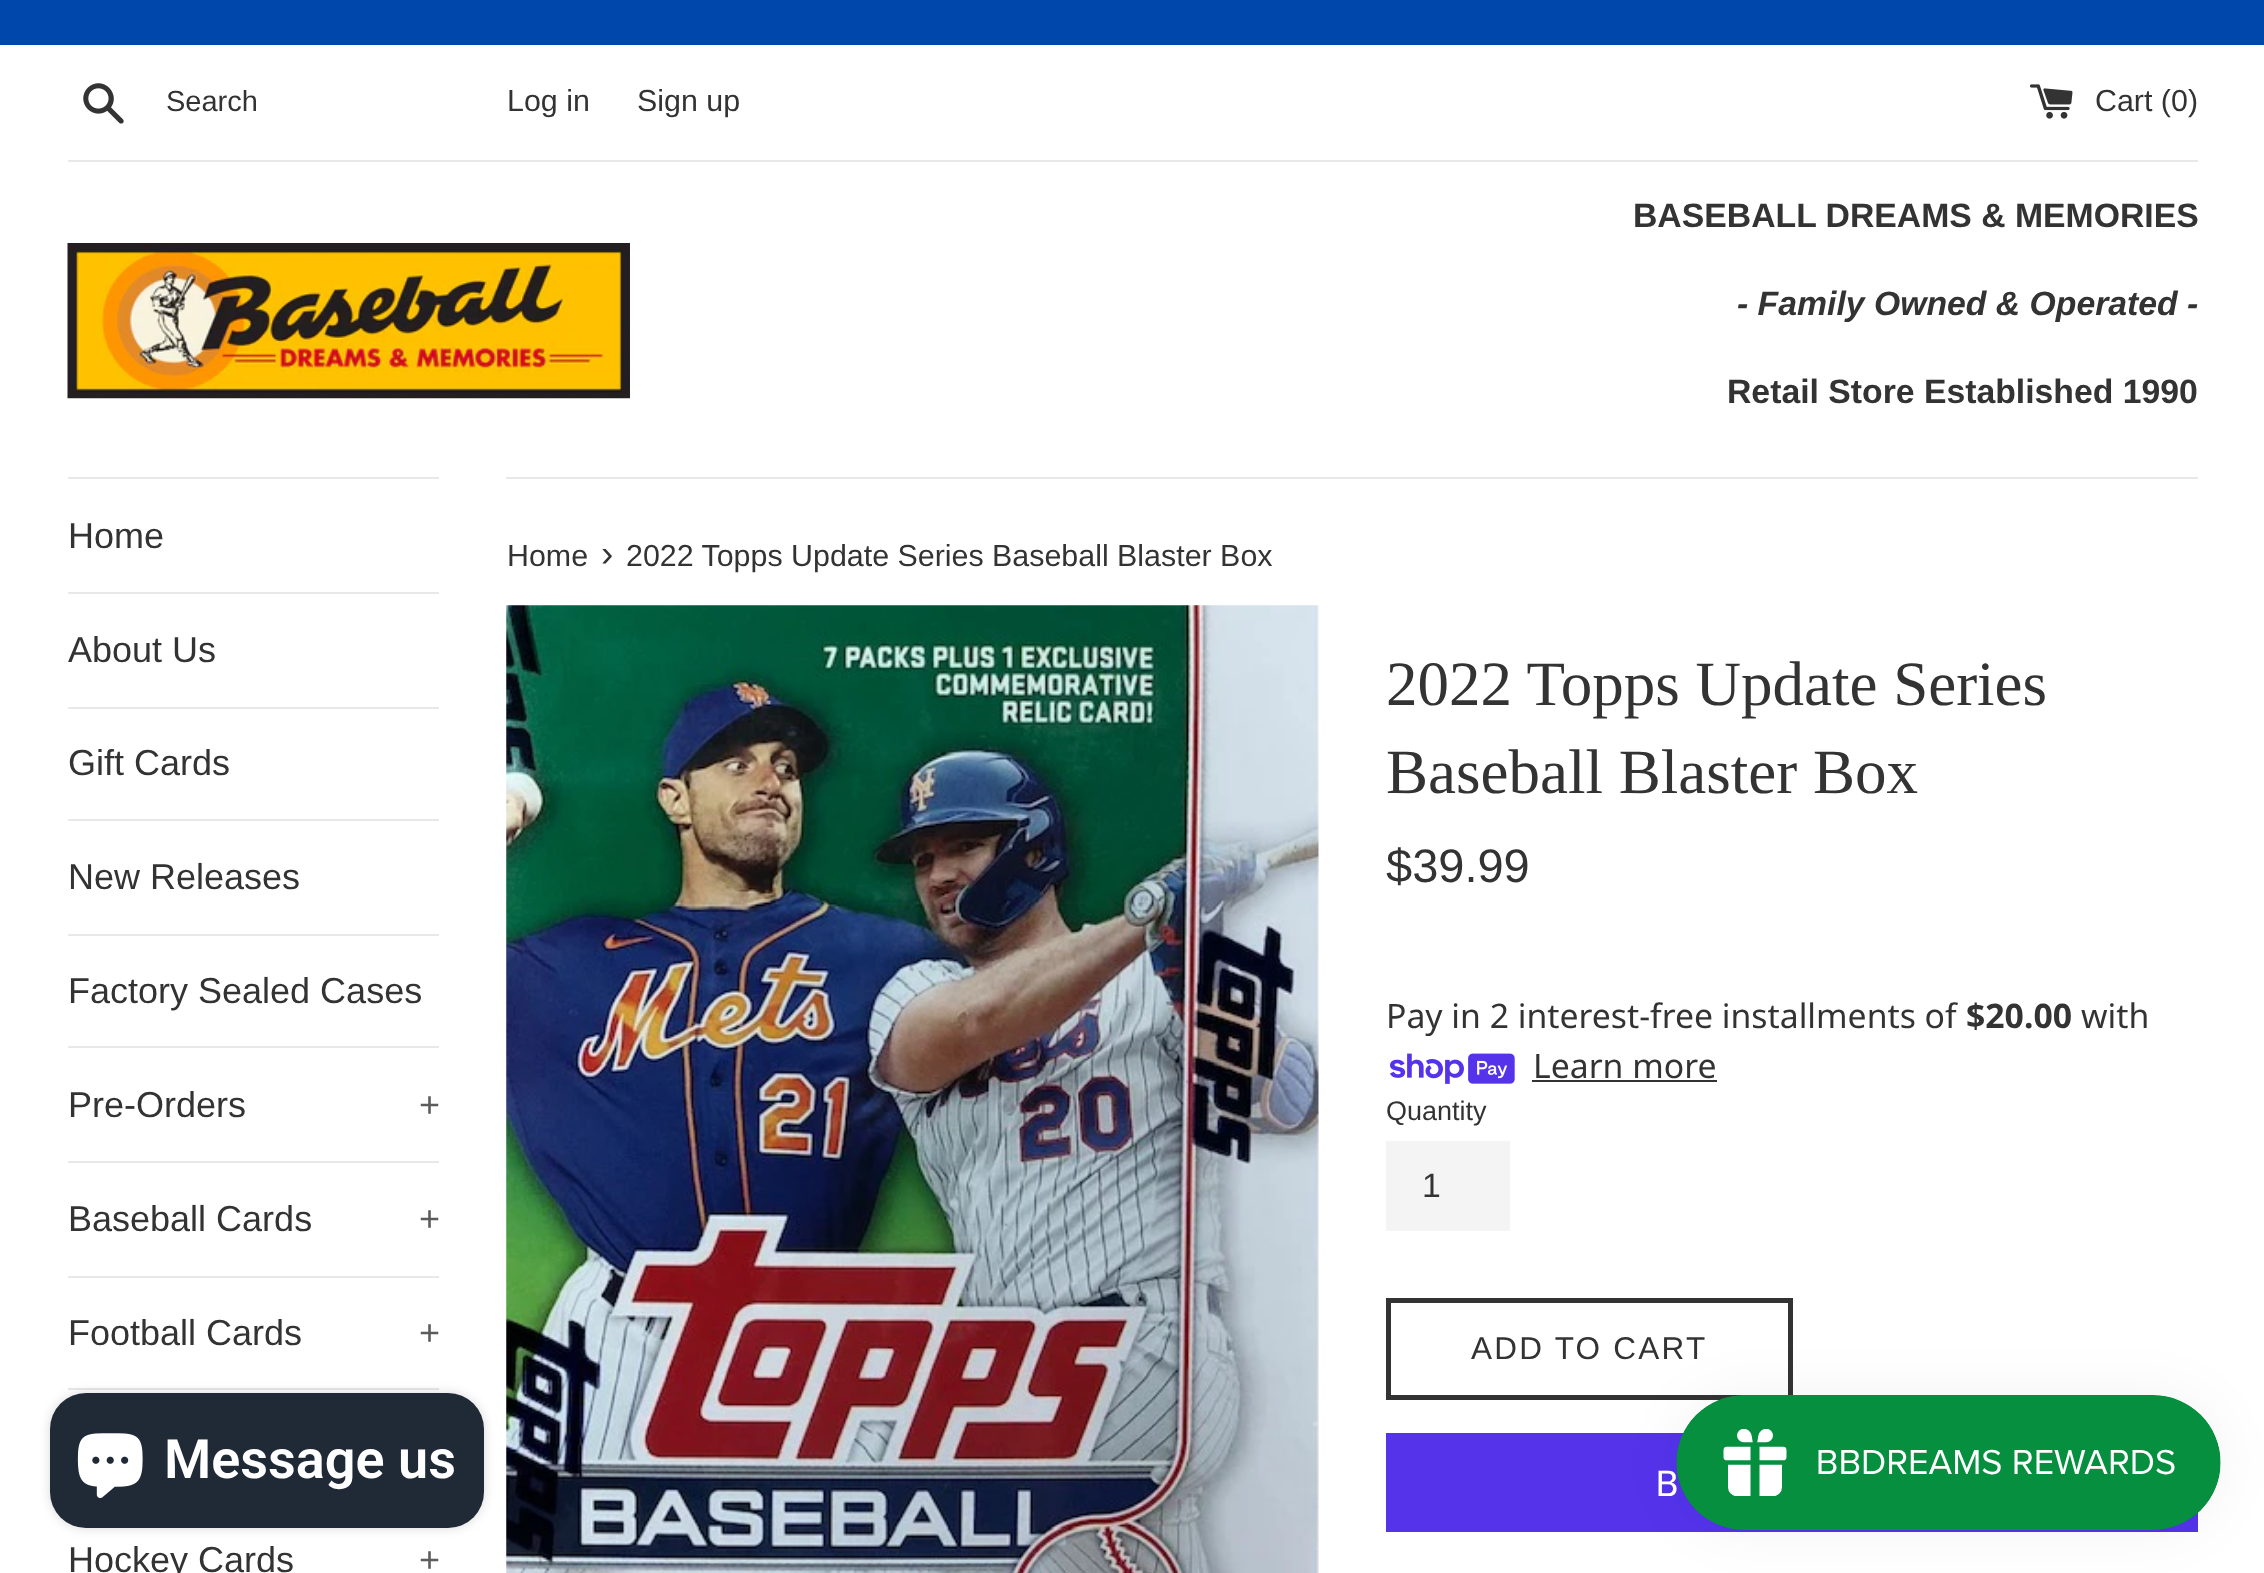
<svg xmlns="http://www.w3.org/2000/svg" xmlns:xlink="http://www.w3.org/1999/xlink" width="2264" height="1573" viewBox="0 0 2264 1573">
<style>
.cls-1{font:29px Liberation Sans;fill:#333333}
.cls-2{font:30.4px Liberation Sans;fill:#333333}
.cls-3{font:bold 33.75px Liberation Sans;fill:#333333}
.cls-4{font:italic bold 33.75px Liberation Sans;fill:#333333}
.cls-5{font:36px Liberation Sans;fill:#333333}
.cls-6{font:36px Liberation Sans;fill:#5c5c5c}
.cls-7{font:37px Liberation Sans;fill:#333333}
.cls-8{font:63px Liberation Serif;fill:#333333}
.cls-9{font:47px Liberation Sans;fill:#333333}
.cls-10{font:33.75px Noto Sans;fill:#333333}
.cls-11{font:bold 33.75px Noto Sans;fill:#333333}
.cls-12{font:27px Liberation Sans;fill:#333333}
.cls-13{font:33.75px Liberation Sans;fill:#333333}
.cls-14{font:31.5px Liberation Sans;letter-spacing:2.25px;fill:#333333}
.cls-15{font:36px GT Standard;fill:#ffffff}
.cls-16{font:600 54px Roboto;fill:#ffffff}
</style>
<rect width="100%" height="100%" fill="#ffffff"/>
<rect fill="#0047ab" x="0" y="0" width="2264" height="45"/>
<image xlink:href="image0.png" x="83" y="83" width="41" height="41"/>
<image xlink:href="image1.png" x="2030" y="84" width="43" height="35"/>
<rect fill="#e8e8e8" x="68" y="160" width="2130" height="2"/>
<image xlink:href="image2.png" x="67" y="243" width="563" height="156"/>
<rect fill="#e8e8e8" x="68" y="477" width="371" height="2"/>
<rect fill="#e8e8e8" x="68" y="592" width="371" height="2"/>
<rect fill="#e8e8e8" x="68" y="707" width="371" height="2"/>
<rect fill="#e8e8e8" x="68" y="819" width="371" height="2"/>
<rect fill="#e8e8e8" x="68" y="934" width="371" height="2"/>
<rect fill="#e8e8e8" x="68" y="1046" width="371" height="2"/>
<rect fill="#e8e8e8" x="68" y="1161" width="371" height="2"/>
<rect fill="#e8e8e8" x="68" y="1276" width="371" height="2"/>
<rect fill="#e8e8e8" x="68" y="1388" width="371" height="2"/>
<rect fill="#e8e8e8" x="506" y="477" width="1692" height="2"/>
<image xlink:href="image3.png" x="506" y="605" width="813" height="968"/>
<image xlink:href="image4.png" x="1390" y="1053" width="125" height="31"/>
<rect fill="#333333" x="1532" y="1080" width="185" height="2"/>
<rect fill="#f4f4f4" x="1386" y="1141" width="124" height="90"/>
<rect fill="none" stroke="#333333" stroke-width="5" x="1388.5" y="1300.5" width="402" height="97"/>
<rect fill="#5433eb" x="1386" y="1433" width="812" height="99"/>
<rect fill="#000000" fill-opacity="0.15" filter="blur(5.5px)" x="50" y="1393" width="434" height="135" rx="36"/>
<rect fill="#202a36" x="50" y="1393" width="434" height="135" rx="36"/>
<image xlink:href="image5.png" x="77" y="1433" width="66" height="65"/>
<rect fill="#000000" fill-opacity="0.05" filter="blur(28px)" x="1676" y="1395" width="545" height="135" rx="67.5"/>
<text class="cls-1" x="166" y="111">Search</text>
<text class="cls-2" x="507" y="111">Log in</text>
<text class="cls-2" x="637" y="111">Sign up</text>
<text class="cls-2" x="2095" y="111">Cart (0)</text>
<text class="cls-3" x="1633" y="227">BASEBALL DREAMS &amp; MEMORIES</text>
<text class="cls-4" x="1737" y="315">- Family Owned &amp; Operated -</text>
<text class="cls-3" x="1727" y="403">Retail Store Established 1990</text>
<text class="cls-5" x="68" y="548">Home</text>
<text class="cls-5" x="68" y="662">About Us</text>
<text class="cls-5" x="68" y="775">Gift Cards</text>
<text class="cls-5" x="68" y="889">New Releases</text>
<text class="cls-5" x="68" y="1003">Factory Sealed Cases</text>
<text class="cls-5" x="68" y="1117">Pre-Orders</text>
<text class="cls-6" x="419" y="1117">+</text>
<text class="cls-5" x="68" y="1231">Baseball Cards</text>
<text class="cls-6" x="419" y="1231">+</text>
<text class="cls-5" x="68" y="1345">Football Cards</text>
<text class="cls-6" x="419" y="1345">+</text>
<text class="cls-5" x="68" y="1572">Hockey Cards</text>
<text class="cls-6" x="419" y="1572">+</text>
<text class="cls-2" x="507" y="566">Home</text>
<text class="cls-7" x="601" y="566">›</text>
<text class="cls-2" x="626" y="566">2022 Topps Update Series Baseball Blaster Box</text>
<text class="cls-8"><tspan x="1386" y="705">2022 Topps Update Series</tspan><tspan x="1386" y="793">Baseball Blaster Box</tspan></text>
<text class="cls-9" x="1386" y="882">$39.99</text>
<text class="cls-10" x="1386" y="1028">Pay in 2 interest-free installments of</text>
<text class="cls-11" x="1966" y="1028">$20.00</text>
<text class="cls-10" x="2081" y="1028">with</text>
<text class="cls-10" x="1533" y="1078">Learn more</text>
<text class="cls-12" x="1386" y="1120">Quantity</text>
<text class="cls-13" x="1422" y="1197">1</text>
<text class="cls-14" x="1471" y="1359">ADD TO CART</text>
<text class="cls-15" x="1655" y="1496">B</text>
<text class="cls-16" x="164" y="1478">Message us</text>
<image xlink:href="image6.png" x="1676" y="1395" width="545" height="135"/>
</svg>
